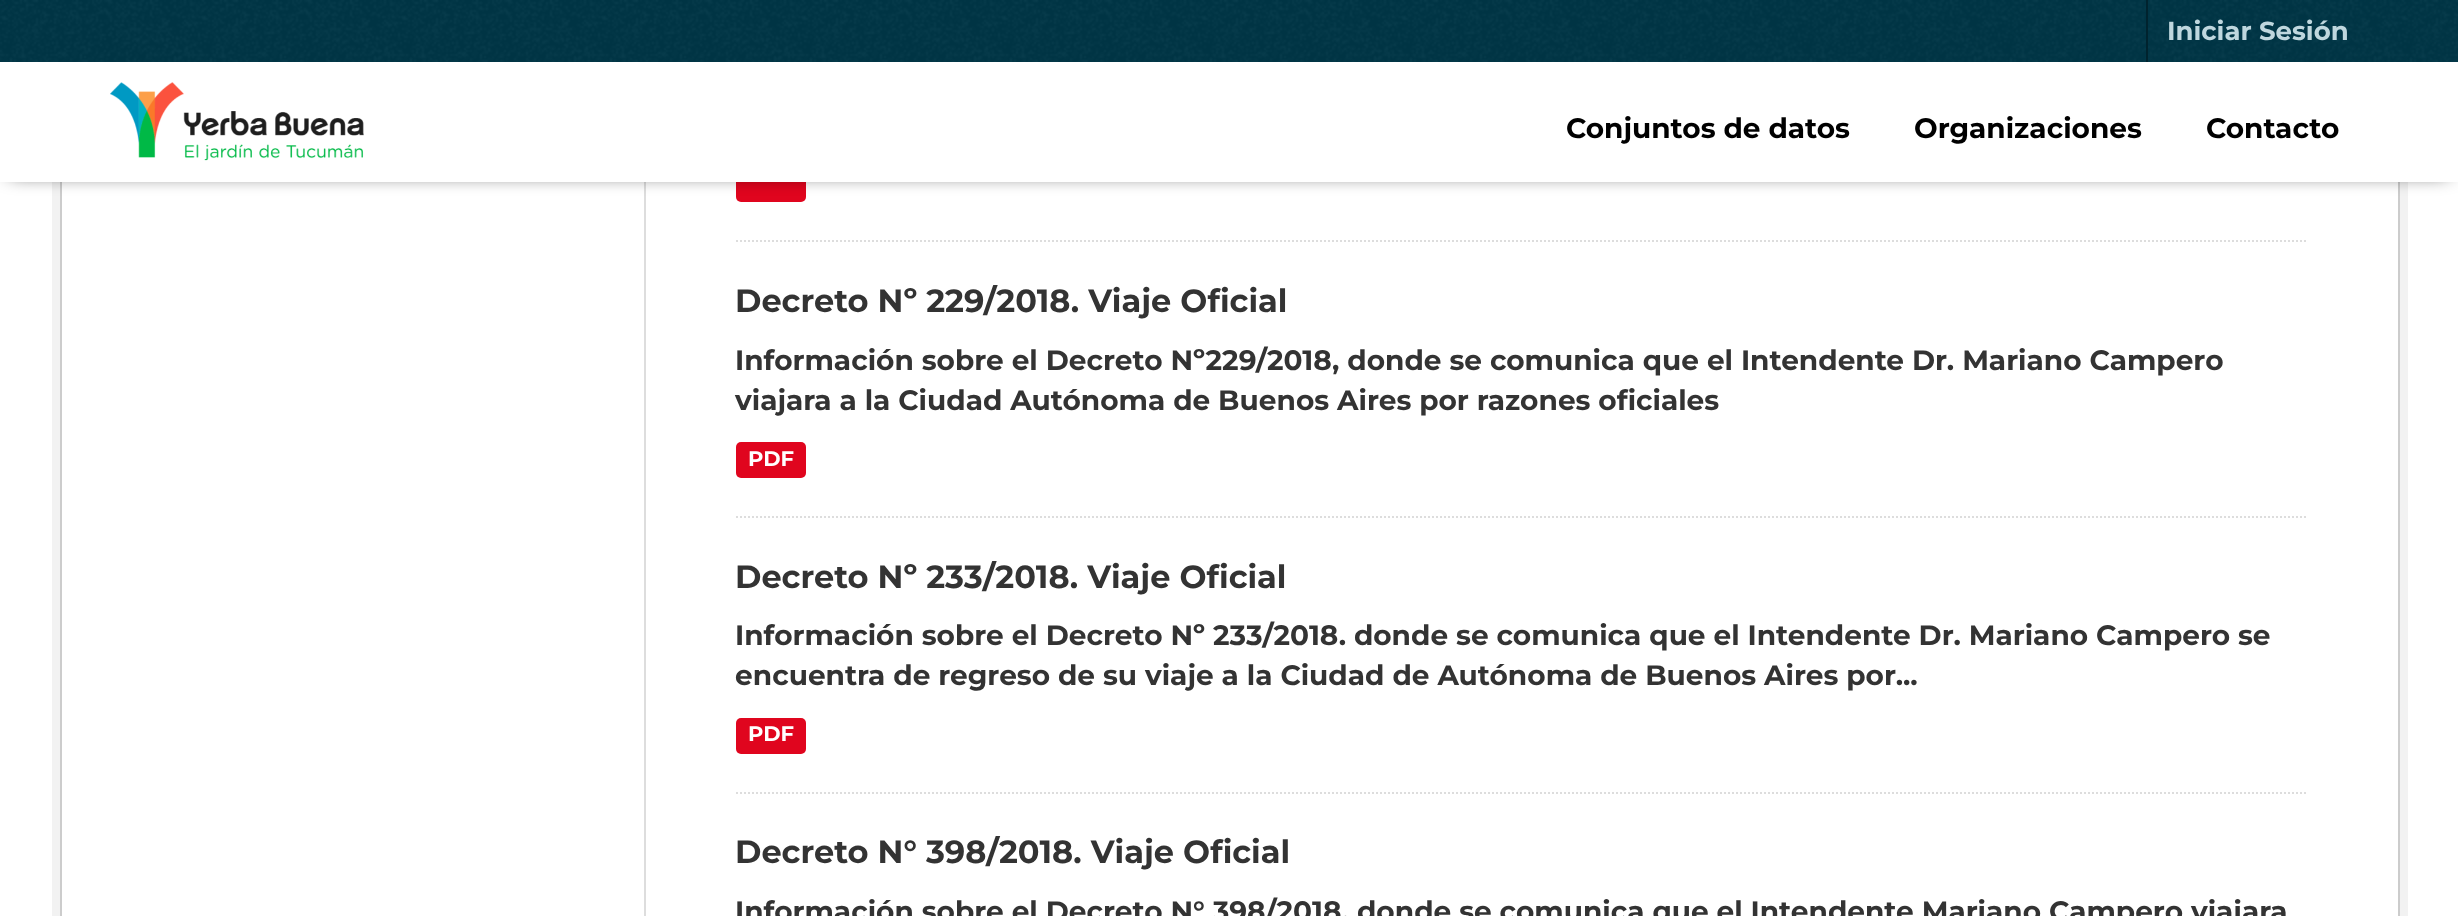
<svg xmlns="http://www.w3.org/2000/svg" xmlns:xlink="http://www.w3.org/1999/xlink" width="2458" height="916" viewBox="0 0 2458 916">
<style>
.cls-1{font:bold 26px Montserrat;fill:#bfd7de}
.cls-2{font:bold 28px Montserrat;fill:#000000}
.cls-3{font:bold 32px Montserrat;fill:#333333}
.cls-4{font:bold 28px Montserrat;fill:#333333}
.cls-5{font:bold 21px Montserrat;fill:#ffffff}
</style>
<rect width="100%" height="100%" fill="#ffffff"/>
<rect fill="none" stroke="#f2f2f2" stroke-width="8" x="56" y="-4" width="2348" height="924"/>
<rect fill="none" stroke="#cccccc" stroke-width="2" x="61" y="-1" width="2338" height="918"/>
<rect fill="#dddddd" x="644" y="182" width="2" height="734"/>
<rect fill="#e0051e" x="736" y="166" width="70" height="36" rx="5"/>
<rect fill="#000000" filter="blur(10px)" x="10" y="72" width="2438" height="100"/>
<rect fill="#003647" x="0" y="0" width="2458" height="62"/>
<image xlink:href="image0.png" x="0" y="0" width="2458" height="62"/>
<rect fill="#00232e" x="2146" y="0" width="2" height="62"/>
<rect fill="#ffffff" x="0" y="62" width="2458" height="120"/>
<image xlink:href="image1.png" x="110" y="82" width="254" height="79"/>
<path fill="none" stroke="#dddddd" stroke-width="2" stroke-dasharray="2 2" d="M736 241H2308"/>
<path fill="none" stroke="#dddddd" stroke-width="2" stroke-dasharray="2 2" d="M736 517H2308"/>
<rect fill="#e0051e" x="736" y="442" width="70" height="36" rx="5"/>
<path fill="none" stroke="#dddddd" stroke-width="2" stroke-dasharray="2 2" d="M736 793H2308"/>
<rect fill="#e0051e" x="736" y="718" width="70" height="36" rx="5"/>
<text class="cls-1" x="2167" y="40">Iniciar Sesión</text>
<text class="cls-2" x="1566" y="138">Conjuntos de datos</text>
<text class="cls-2" x="1914" y="138">Organizaciones</text>
<text class="cls-2" x="2206" y="138">Contacto</text>
<text class="cls-3" x="735" y="312">Decreto Nº 229/2018. Viaje Oficial</text>
<text class="cls-4"><tspan x="735" y="370">Información sobre el Decreto Nº229/2018, donde se comunica que el Intendente Dr. Mariano Campero</tspan><tspan x="735" y="410">viajara a la Ciudad Autónoma de Buenos Aires por razones oficiales</tspan></text>
<text class="cls-5" x="748" y="466">PDF</text>
<text class="cls-3" x="735" y="588">Decreto Nº 233/2018. Viaje Oficial</text>
<text class="cls-4"><tspan x="735" y="645">Información sobre el Decreto Nº 233/2018. donde se comunica que el Intendente Dr. Mariano Campero se</tspan><tspan x="735" y="685">encuentra de regreso de su viaje a la Ciudad de Autónoma de Buenos Aires por...</tspan></text>
<text class="cls-5" x="748" y="741">PDF</text>
<text class="cls-3" x="735" y="863">Decreto N° 398/2018. Viaje Oficial</text>
<text class="cls-4" x="735" y="921">Información sobre el Decreto N° 398/2018, donde se comunica que el Intendente Mariano Campero viajara</text>
</svg>
